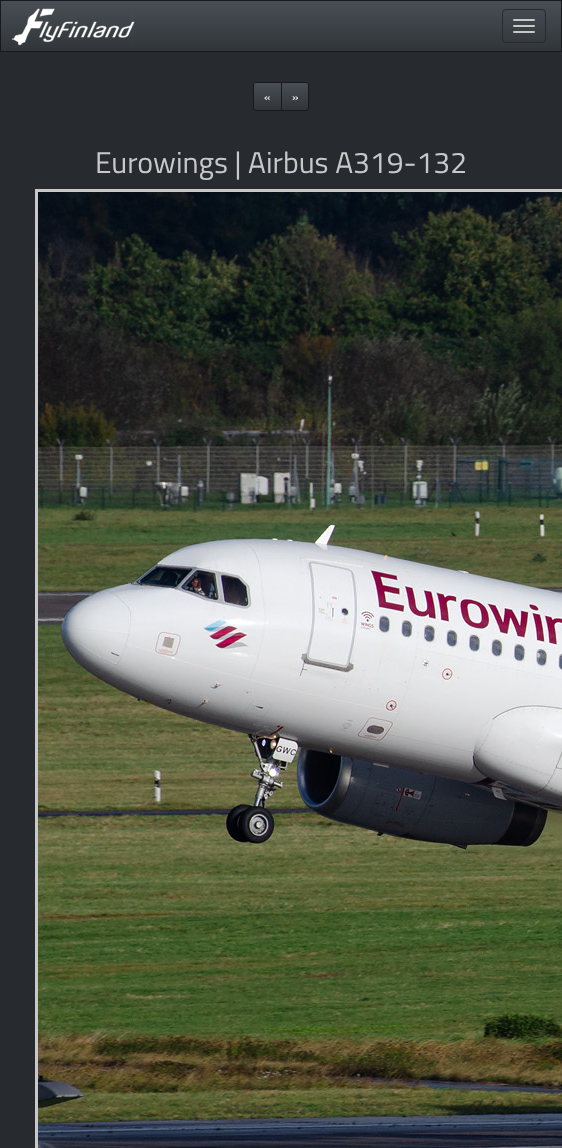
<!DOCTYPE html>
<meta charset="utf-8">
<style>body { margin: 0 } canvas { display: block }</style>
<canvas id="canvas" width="562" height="1148"></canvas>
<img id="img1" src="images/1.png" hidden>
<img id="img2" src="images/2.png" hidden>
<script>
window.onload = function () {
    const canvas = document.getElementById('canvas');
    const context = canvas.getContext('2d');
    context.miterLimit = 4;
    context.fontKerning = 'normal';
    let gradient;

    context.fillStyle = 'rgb(39, 43, 48)';
    context.fillRect(0, 0, 562, 1148);
    gradient = context.createLinearGradient(281, 1, 281, 51);
    gradient.addColorStop(0, 'rgb(72, 78, 85)');
    gradient.addColorStop(0.6, 'rgb(58, 63, 68)');
    gradient.addColorStop(1, 'rgb(49, 53, 57)');
    context.fillStyle = gradient;
    context.fillRect(1, 1, 560, 50);
    context.strokeStyle = 'rgb(23, 25, 27)';
    context.strokeRect(0.5, 0.5, 561, 51);
    context.drawImage(document.getElementById('img1'), 12, 8, 123, 38);
    context.beginPath();
    context.roundRect(502.5, 9.5, 43, 33, 3.5);
    context.strokeStyle = 'rgb(39, 43, 46)';
    context.stroke();
    context.fillStyle = 'rgb(200, 200, 200)';
    context.beginPath();
    context.roundRect(513, 19, 22, 2, 1);
    context.fill();
    context.beginPath();
    context.roundRect(513, 25, 22, 2, 1);
    context.fill();
    context.beginPath();
    context.roundRect(513, 31, 22, 2, 1);
    context.fill();
    context.fillStyle = 'rgb(58, 63, 68)';
    context.beginPath();
    context.roundRect(253, 82, 29, 29, [3, 0, 0, 3]);
    context.fill();
    gradient = context.createLinearGradient(268, 83, 268, 110);
    gradient.addColorStop(0, 'rgb(72, 78, 85)');
    gradient.addColorStop(0.6, 'rgb(58, 63, 68)');
    gradient.addColorStop(1, 'rgb(49, 53, 57)');
    context.fillStyle = gradient;
    context.fillRect(254, 83, 27, 27);
    context.beginPath();
    context.roundRect(253.5, 82.5, 28, 28, [2.5, 0, 0, 2.5]);
    context.strokeStyle = 'rgba(0, 0, 0, 0.6)';
    context.stroke();
    context.fillStyle = 'rgb(58, 63, 68)';
    context.beginPath();
    context.roundRect(281, 82, 28, 29, [0, 3, 3, 0]);
    context.fill();
    gradient = context.createLinearGradient(295, 83, 295, 110);
    gradient.addColorStop(0, 'rgb(72, 78, 85)');
    gradient.addColorStop(0.6, 'rgb(58, 63, 68)');
    gradient.addColorStop(1, 'rgb(49, 53, 57)');
    context.fillStyle = gradient;
    context.fillRect(282, 83, 26, 27);
    context.beginPath();
    context.roundRect(281.5, 82.5, 27, 28, [0, 2.5, 2.5, 0]);
    context.stroke();
    context.strokeStyle = 'rgb(200, 200, 200)';
    context.lineWidth = 3;
    context.strokeRect(36.5, 190.5, 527, 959);
    context.drawImage(document.getElementById('img2'), 38, 192, 524, 956);
    context.font = '12px Titillium Web';
    context.fillStyle = 'rgb(255, 255, 255)';
    context.fillText('«', 264, 101);
    context.fillText('»', 292, 101);
    context.font = '30px Titillium Web';
    context.fillStyle = 'rgb(200, 200, 200)';
    context.fillText('Eurowings | Airbus A319-132', 95, 173);
};
</script>
